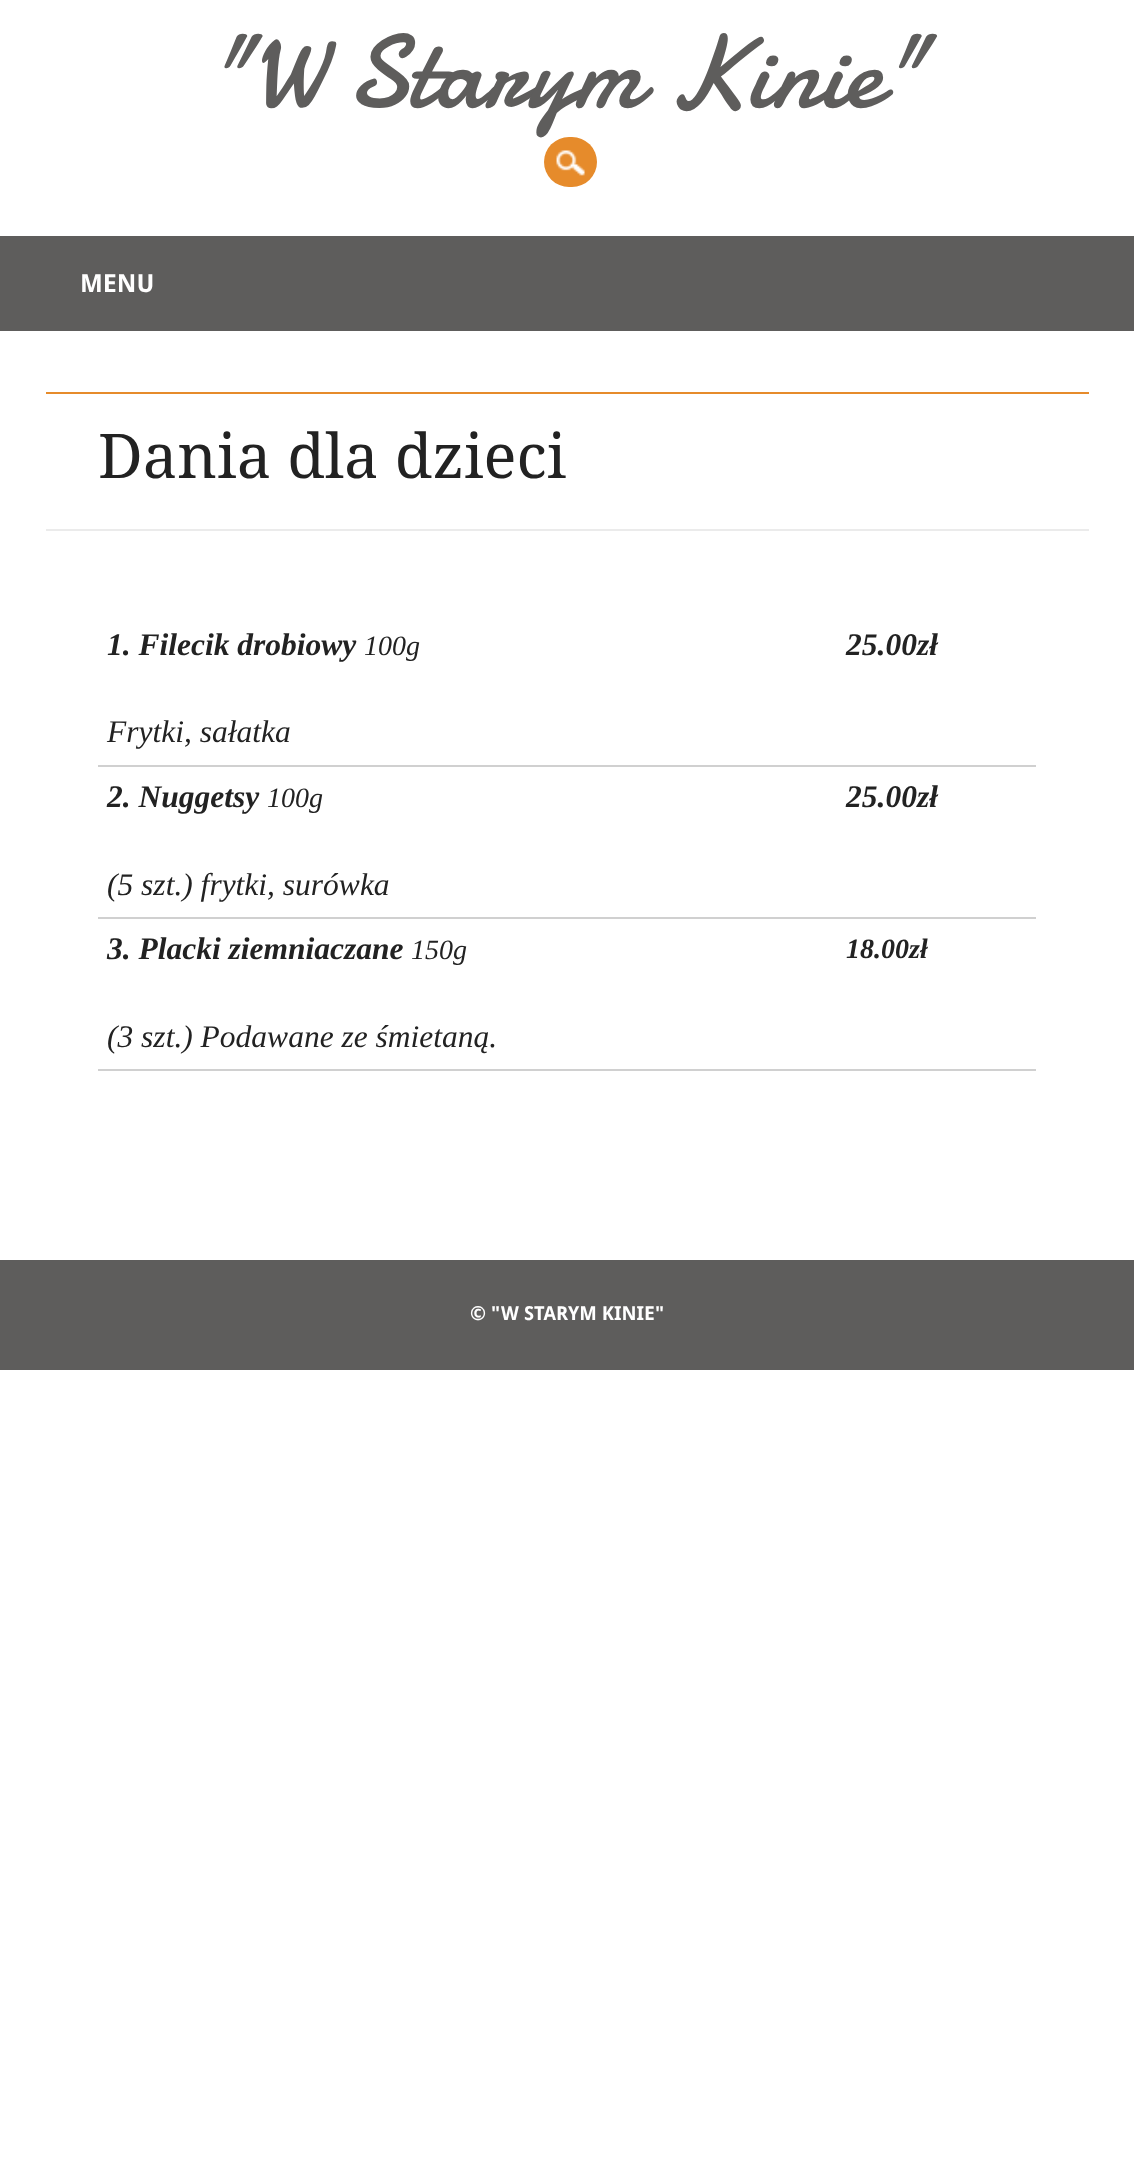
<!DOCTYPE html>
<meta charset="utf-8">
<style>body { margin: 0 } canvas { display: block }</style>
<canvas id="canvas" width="1134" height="2177"></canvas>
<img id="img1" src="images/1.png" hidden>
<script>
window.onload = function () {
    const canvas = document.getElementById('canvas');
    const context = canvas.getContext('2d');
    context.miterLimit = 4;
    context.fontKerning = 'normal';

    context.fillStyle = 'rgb(255, 255, 255)';
    context.fillRect(0, 0, 1134, 2177);
    context.fillStyle = 'rgb(94, 93, 92)';
    context.fillRect(0, 236, 1134, 95);
    context.fillStyle = 'rgb(230, 139, 43)';
    context.fillRect(46, 392, 1043, 2);
    context.fillStyle = 'rgb(235, 235, 235)';
    context.fillRect(46, 529, 1043, 2);
    context.fillStyle = 'rgb(208, 208, 208)';
    context.fillRect(98, 765, 938, 2);
    context.fillRect(98, 917, 938, 2);
    context.fillRect(98, 1069, 938, 2);
    context.fillStyle = 'rgb(94, 93, 92)';
    context.fillRect(0, 1260, 1134, 110);
    context.font = '105px Damion';
    context.fillText('"W Starym Kinie"', 208, 107);
    context.fillStyle = 'rgb(230, 139, 43)';
    context.beginPath();
    context.roundRect(544, 137, 53, 50, 25);
    context.fill();
    context.drawImage(document.getElementById('img1'), 556, 150, 29, 26);
    context.font = 'bold 25px Droid Sans';
    context.fillStyle = 'rgb(255, 255, 255)';
    context.fillText('MENU', 80, 292);
    context.font = '61.5px Droid Serif';
    context.fillStyle = 'rgb(34, 34, 34)';
    context.fillText('Dania dla dzieci', 98, 478);
    context.font = 'italic bold 31.5px Liberation Serif';
    context.fillText('1. Filecik drobiowy', 107, 655);
    context.font = 'italic 28px Liberation Serif';
    context.fillText('100g', 364, 655);
    context.font = 'italic 31.5px Liberation Serif';
    context.fillText('Frytki, sałatka', 107, 742);
    context.font = 'italic bold 31.5px Liberation Serif';
    context.fillText('25.00zł', 846, 655);
    context.fillText('2. Nuggetsy', 107, 807);
    context.font = 'italic 28px Liberation Serif';
    context.fillText('100g', 267, 807);
    context.font = 'italic 31.5px Liberation Serif';
    context.fillText('(5 szt.) frytki, surówka', 107, 895);
    context.font = 'italic bold 31.5px Liberation Serif';
    context.fillText('25.00zł', 846, 807);
    context.fillText('3. Placki ziemniaczane', 107, 959);
    context.font = 'italic 28px Liberation Serif';
    context.fillText('150g', 411, 959);
    context.font = 'italic 31.5px Liberation Serif';
    context.fillText('(3 szt.) Podawane ze śmietaną.', 107, 1047);
    context.font = 'italic bold 28px Liberation Serif';
    context.fillText('18.00zł', 846, 958);
    context.font = 'bold 19.25px Droid Sans';
    context.fillStyle = 'rgb(255, 255, 255)';
    context.fillText('© "W STARYM KINIE"', 470, 1320);
};
</script>
